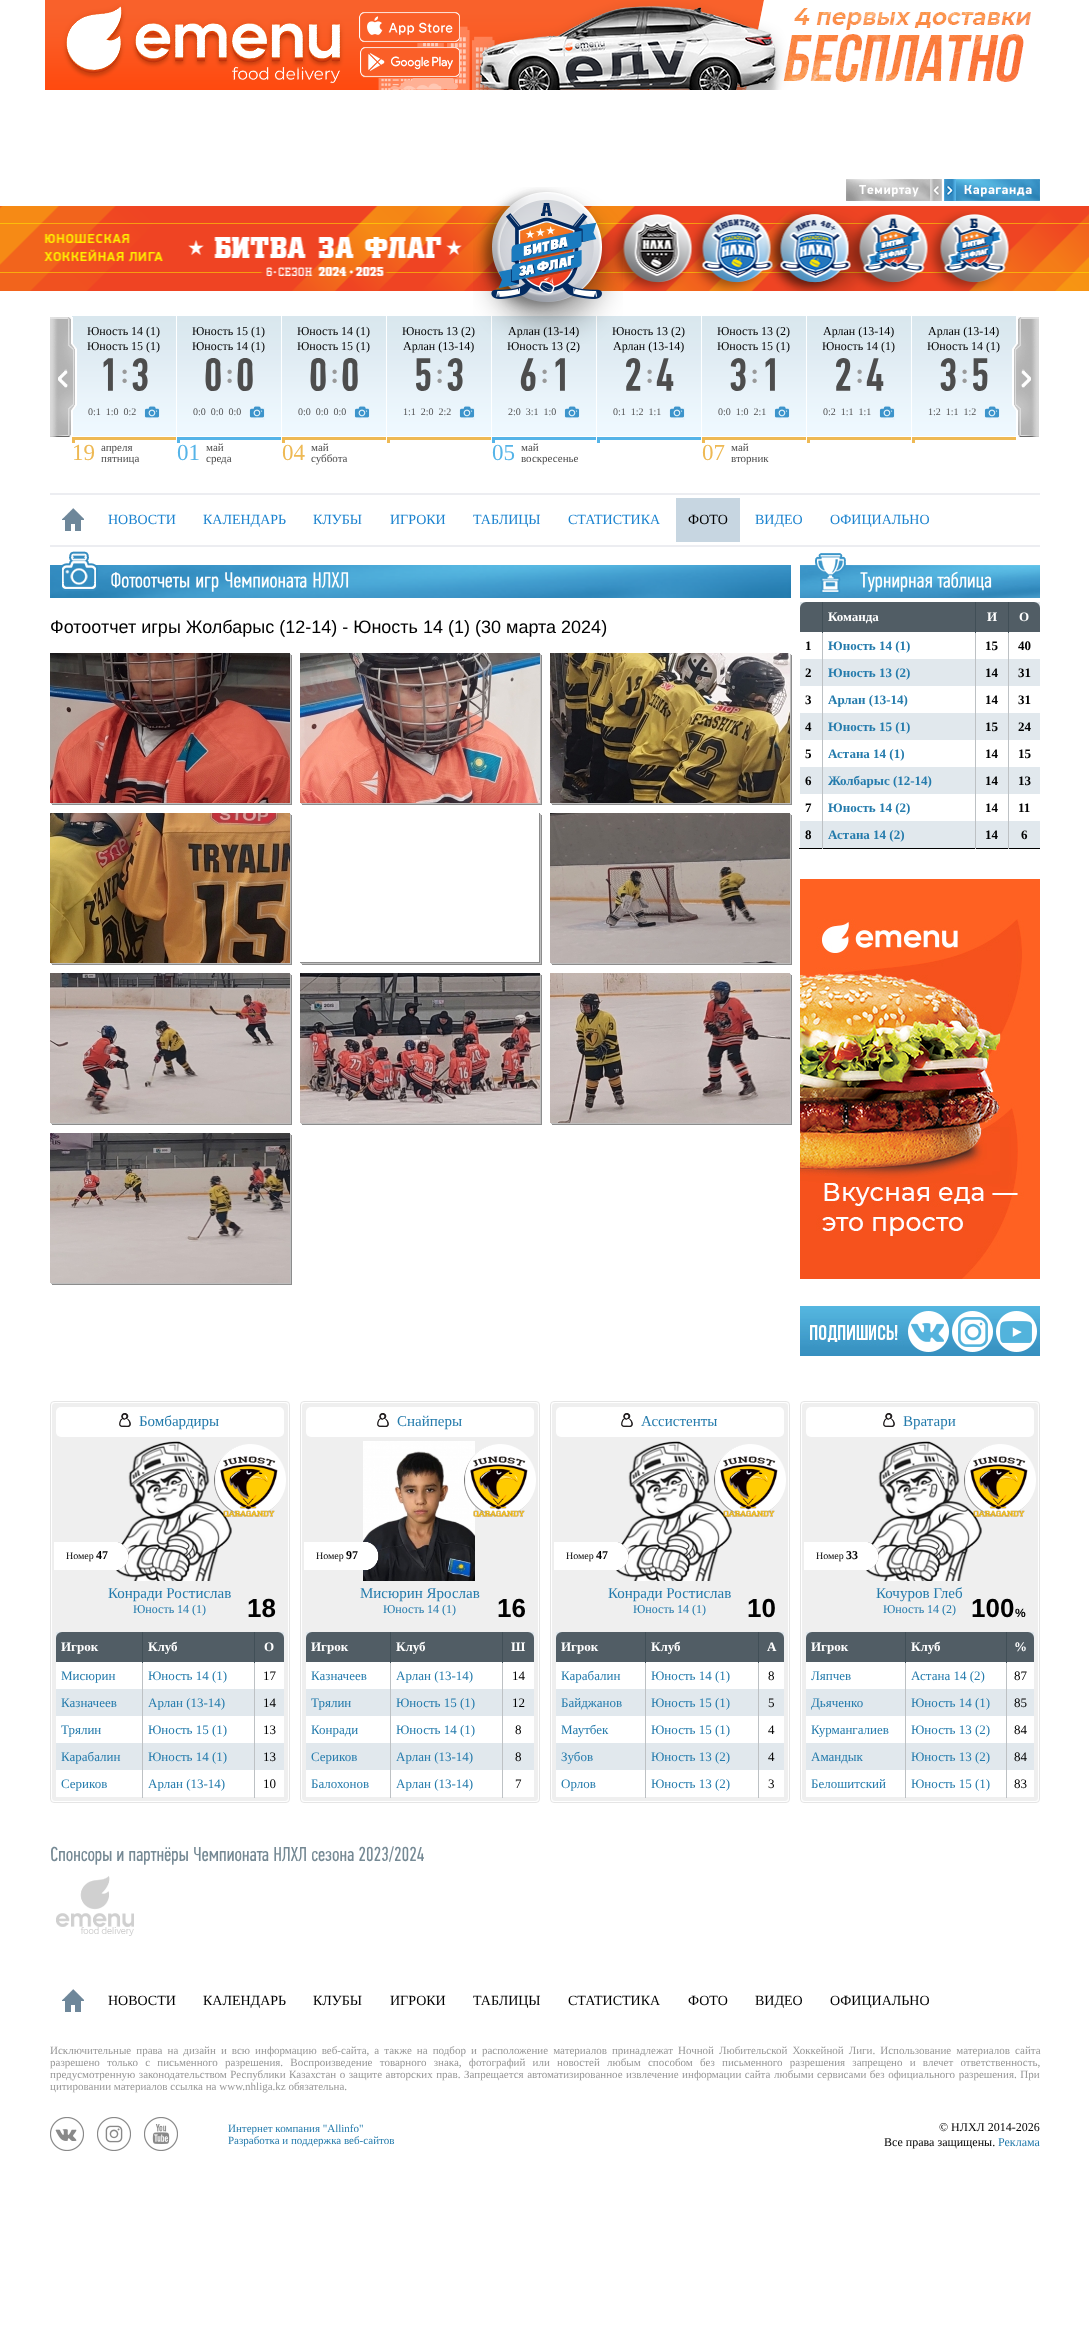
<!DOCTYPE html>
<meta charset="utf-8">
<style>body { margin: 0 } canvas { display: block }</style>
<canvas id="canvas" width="1089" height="2337"></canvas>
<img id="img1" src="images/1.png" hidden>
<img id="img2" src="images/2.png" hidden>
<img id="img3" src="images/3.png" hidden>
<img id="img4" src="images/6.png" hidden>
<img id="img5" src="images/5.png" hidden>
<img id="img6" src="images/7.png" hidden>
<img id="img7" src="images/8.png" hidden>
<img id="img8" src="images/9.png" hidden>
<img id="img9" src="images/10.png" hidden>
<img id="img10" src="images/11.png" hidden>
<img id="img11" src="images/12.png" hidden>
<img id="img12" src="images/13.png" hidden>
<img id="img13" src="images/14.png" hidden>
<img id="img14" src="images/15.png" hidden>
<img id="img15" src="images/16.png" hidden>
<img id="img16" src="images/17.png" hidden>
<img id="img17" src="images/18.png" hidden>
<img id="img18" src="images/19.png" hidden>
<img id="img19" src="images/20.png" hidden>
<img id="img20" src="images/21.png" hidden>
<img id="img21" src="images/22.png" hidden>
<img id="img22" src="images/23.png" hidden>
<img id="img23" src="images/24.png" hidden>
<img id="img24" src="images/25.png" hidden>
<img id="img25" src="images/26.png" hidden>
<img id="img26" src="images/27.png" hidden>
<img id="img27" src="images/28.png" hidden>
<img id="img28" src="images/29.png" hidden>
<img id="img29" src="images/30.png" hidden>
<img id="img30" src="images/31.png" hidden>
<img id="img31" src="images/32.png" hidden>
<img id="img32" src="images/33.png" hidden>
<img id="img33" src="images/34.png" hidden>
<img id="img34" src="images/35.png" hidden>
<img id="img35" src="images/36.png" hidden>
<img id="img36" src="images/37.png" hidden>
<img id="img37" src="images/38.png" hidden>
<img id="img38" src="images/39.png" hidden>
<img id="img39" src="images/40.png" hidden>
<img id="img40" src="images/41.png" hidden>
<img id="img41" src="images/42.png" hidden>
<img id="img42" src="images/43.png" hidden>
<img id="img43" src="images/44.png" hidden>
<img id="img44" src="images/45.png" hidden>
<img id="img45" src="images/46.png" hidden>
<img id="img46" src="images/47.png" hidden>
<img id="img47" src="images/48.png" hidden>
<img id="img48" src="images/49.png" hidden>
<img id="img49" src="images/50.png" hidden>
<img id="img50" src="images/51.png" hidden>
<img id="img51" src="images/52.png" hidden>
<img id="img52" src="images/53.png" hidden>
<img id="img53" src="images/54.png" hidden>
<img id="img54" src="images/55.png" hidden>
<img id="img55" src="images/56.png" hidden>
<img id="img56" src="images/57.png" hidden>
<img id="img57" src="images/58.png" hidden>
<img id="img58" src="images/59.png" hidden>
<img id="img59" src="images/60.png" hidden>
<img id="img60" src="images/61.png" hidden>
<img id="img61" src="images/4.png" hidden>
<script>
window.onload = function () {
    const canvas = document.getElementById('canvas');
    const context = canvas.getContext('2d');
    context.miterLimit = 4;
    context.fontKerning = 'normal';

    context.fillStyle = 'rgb(255, 255, 255)';
    context.fillRect(0, 0, 1089, 2337);
    context.drawImage(document.getElementById('img1'), 45, 0, 986, 90);
    context.drawImage(document.getElementById('img2'), 846, 179, 194, 22);
    context.drawImage(document.getElementById('img3'), 0, 206, 1089, 85);
    context.drawImage(document.getElementById('img4'), 72, 316, 104, 120);
    context.drawImage(document.getElementById('img5'), 50, 317, 27, 120);
    context.drawImage(document.getElementById('img6'), 103, 358, 10, 33);
    context.drawImage(document.getElementById('img7'), 122, 369, 5, 14);
    context.drawImage(document.getElementById('img8'), 132, 358, 16, 33);
    context.drawImage(document.getElementById('img9'), 144, 405, 16, 15);
    context.fillStyle = 'rgb(238, 185, 84)';
    context.fillRect(72, 437, 104, 3);
    context.fillRect(72, 440, 3, 3);
    context.drawImage(document.getElementById('img4'), 177, 316, 104, 120);
    context.drawImage(document.getElementById('img10'), 205, 358, 16, 33);
    context.drawImage(document.getElementById('img7'), 227, 369, 5, 14);
    context.drawImage(document.getElementById('img10'), 237, 358, 16, 33);
    context.drawImage(document.getElementById('img9'), 249, 405, 16, 15);
    context.fillStyle = 'rgb(85, 180, 232)';
    context.fillRect(177, 437, 104, 3);
    context.fillRect(177, 440, 3, 3);
    context.drawImage(document.getElementById('img4'), 282, 316, 104, 120);
    context.drawImage(document.getElementById('img10'), 310, 358, 16, 33);
    context.drawImage(document.getElementById('img7'), 332, 369, 5, 14);
    context.drawImage(document.getElementById('img10'), 342, 358, 16, 33);
    context.drawImage(document.getElementById('img9'), 354, 405, 16, 15);
    context.fillStyle = 'rgb(238, 185, 84)';
    context.fillRect(282, 437, 104, 3);
    context.fillRect(282, 440, 3, 3);
    context.drawImage(document.getElementById('img4'), 387, 316, 104, 120);
    context.drawImage(document.getElementById('img11'), 416, 358, 15, 33);
    context.drawImage(document.getElementById('img7'), 437, 369, 5, 14);
    context.drawImage(document.getElementById('img8'), 447, 358, 16, 33);
    context.drawImage(document.getElementById('img9'), 459, 405, 16, 15);
    context.fillRect(387, 437, 104, 3);
    context.fillRect(387, 440, 3, 3);
    context.drawImage(document.getElementById('img4'), 492, 316, 104, 120);
    context.drawImage(document.getElementById('img12'), 520, 358, 16, 33);
    context.drawImage(document.getElementById('img7'), 542, 369, 5, 14);
    context.drawImage(document.getElementById('img6'), 555, 358, 10, 33);
    context.drawImage(document.getElementById('img9'), 564, 405, 16, 15);
    context.fillStyle = 'rgb(85, 180, 232)';
    context.fillRect(492, 437, 104, 3);
    context.fillRect(492, 440, 3, 3);
    context.drawImage(document.getElementById('img4'), 597, 316, 104, 120);
    context.drawImage(document.getElementById('img13'), 626, 358, 15, 33);
    context.drawImage(document.getElementById('img7'), 647, 369, 5, 14);
    context.drawImage(document.getElementById('img14'), 656, 358, 18, 33);
    context.drawImage(document.getElementById('img9'), 669, 405, 16, 15);
    context.fillRect(597, 437, 104, 3);
    context.fillRect(597, 440, 3, 3);
    context.drawImage(document.getElementById('img4'), 702, 316, 104, 120);
    context.drawImage(document.getElementById('img8'), 730, 358, 16, 33);
    context.drawImage(document.getElementById('img7'), 752, 369, 5, 14);
    context.drawImage(document.getElementById('img6'), 765, 358, 10, 33);
    context.drawImage(document.getElementById('img9'), 774, 405, 16, 15);
    context.fillStyle = 'rgb(238, 185, 84)';
    context.fillRect(702, 437, 104, 3);
    context.fillRect(702, 440, 3, 3);
    context.drawImage(document.getElementById('img4'), 807, 316, 104, 120);
    context.drawImage(document.getElementById('img13'), 836, 358, 15, 33);
    context.drawImage(document.getElementById('img7'), 857, 369, 5, 14);
    context.drawImage(document.getElementById('img14'), 866, 358, 18, 33);
    context.drawImage(document.getElementById('img9'), 879, 405, 16, 15);
    context.fillRect(807, 437, 104, 3);
    context.fillRect(807, 440, 3, 3);
    context.drawImage(document.getElementById('img4'), 912, 316, 104, 120);
    context.drawImage(document.getElementById('img8'), 940, 358, 16, 33);
    context.drawImage(document.getElementById('img7'), 962, 369, 5, 14);
    context.drawImage(document.getElementById('img11'), 973, 358, 15, 33);
    context.drawImage(document.getElementById('img9'), 984, 405, 16, 15);
    context.fillRect(912, 437, 104, 3);
    context.fillRect(912, 440, 3, 3);
    context.drawImage(document.getElementById('img15'), 1012, 317, 27, 120);
    context.fillStyle = 'rgb(236, 237, 241)';
    context.fillRect(50, 493, 990, 2);
    context.fillRect(50, 545, 990, 2);
    context.drawImage(document.getElementById('img16'), 62, 508, 22, 23);
    context.fillStyle = 'rgb(199, 214, 225)';
    context.fillRect(676, 498, 64, 44);
    context.drawImage(document.getElementById('img17'), 50, 565, 741, 33);
    context.drawImage(document.getElementById('img18'), 62, 551, 36, 40);
    context.drawImage(document.getElementById('img19'), 111, 572, 79, 16);
    context.drawImage(document.getElementById('img20'), 196, 576, 23, 16);
    context.drawImage(document.getElementById('img21'), 225, 572, 82, 16);
    context.drawImage(document.getElementById('img22'), 313, 572, 36, 16);
    context.drawImage(document.getElementById('img23'), 51, 654, 241, 151);
    context.drawImage(document.getElementById('img24'), 50, 653, 240, 150);
    context.drawImage(document.getElementById('img23'), 301, 654, 241, 151);
    context.drawImage(document.getElementById('img25'), 300, 653, 240, 150);
    context.drawImage(document.getElementById('img23'), 551, 654, 241, 151);
    context.drawImage(document.getElementById('img26'), 550, 653, 240, 150);
    context.drawImage(document.getElementById('img23'), 51, 814, 241, 151);
    context.drawImage(document.getElementById('img27'), 50, 813, 240, 150);
    context.drawImage(document.getElementById('img28'), 300, 813, 242, 152);
    context.drawImage(document.getElementById('img23'), 551, 814, 241, 151);
    context.drawImage(document.getElementById('img29'), 550, 813, 240, 150);
    context.drawImage(document.getElementById('img23'), 51, 974, 241, 151);
    context.drawImage(document.getElementById('img30'), 50, 973, 240, 150);
    context.drawImage(document.getElementById('img23'), 301, 974, 241, 151);
    context.drawImage(document.getElementById('img31'), 300, 973, 240, 150);
    context.drawImage(document.getElementById('img23'), 551, 974, 241, 151);
    context.drawImage(document.getElementById('img32'), 550, 973, 240, 150);
    context.drawImage(document.getElementById('img23'), 51, 1134, 241, 151);
    context.drawImage(document.getElementById('img33'), 50, 1133, 240, 150);
    context.drawImage(document.getElementById('img34'), 800, 565, 240, 33);
    context.drawImage(document.getElementById('img35'), 815, 553, 31, 41);
    context.drawImage(document.getElementById('img36'), 860, 572, 72, 20);
    context.drawImage(document.getElementById('img37'), 937, 571, 55, 20);
    context.fillStyle = 'rgb(225, 232, 237)';
    context.fillRect(800, 602, 240, 6);
    context.fillStyle = 'rgb(81, 93, 101)';
    context.beginPath();
    context.roundRect(800, 602, 22, 30, [6, 0, 0, 0]);
    context.fill();
    context.fillStyle = 'rgb(225, 232, 237)';
    context.fillRect(800, 659, 240, 27);
    context.fillRect(800, 713, 240, 27);
    context.fillRect(800, 767, 240, 27);
    context.fillRect(800, 821, 240, 27);
    context.fillStyle = 'rgb(0, 0, 0)';
    context.fillRect(799, 848, 241, 1);
    context.fillStyle = 'rgb(189, 193, 196)';
    context.fillRect(822, 632, 1, 217);
    context.fillStyle = 'rgb(65, 79, 87)';
    context.fillRect(822, 602, 1, 31);
    context.fillStyle = 'rgb(81, 93, 101)';
    context.fillRect(823, 602, 152, 30);
    context.fillStyle = 'rgb(189, 193, 196)';
    context.fillRect(975, 632, 1, 217);
    context.fillStyle = 'rgb(65, 79, 87)';
    context.fillRect(975, 602, 1, 31);
    context.fillStyle = 'rgb(81, 93, 101)';
    context.fillRect(976, 602, 32, 30);
    context.beginPath();
    context.roundRect(1008, 602, 32, 30, [0, 6, 0, 0]);
    context.fill();
    context.fillStyle = 'rgb(189, 193, 196)';
    context.fillRect(1008, 632, 1, 217);
    context.fillStyle = 'rgb(65, 79, 87)';
    context.fillRect(1008, 602, 1, 31);
    context.drawImage(document.getElementById('img38'), 800, 879, 240, 400);
    context.drawImage(document.getElementById('img39'), 800, 1306, 240, 50);
    context.drawImage(document.getElementById('img40'), 908, 1311, 41, 41);
    context.drawImage(document.getElementById('img41'), 952, 1311, 41, 41);
    context.drawImage(document.getElementById('img42'), 996, 1311, 41, 41);
    context.beginPath();
    context.roundRect(50.5, 1401.5, 239, 401, 3.5);
    context.strokeStyle = 'rgb(229, 229, 229)';
    context.stroke();
    context.fillStyle = 'rgb(239, 239, 239)';
    context.beginPath();
    context.roundRect(51.5, 1402.5, 237, 399, 3.5);
    context.fill();
    context.strokeStyle = 'rgb(255, 255, 255)';
    context.stroke();
    context.fillStyle = 'rgb(255, 255, 255)';
    context.beginPath();
    context.roundRect(56, 1407, 228, 30, 5);
    context.fill();
    context.drawImage(document.getElementById('img43'), 119, 1413, 12, 14);
    context.drawImage(document.getElementById('img44'), 115, 1441, 117, 140);
    context.drawImage(document.getElementById('img45'), 54, 1444, 232, 126);
    context.drawImage(document.getElementById('img46'), 220, 1456, 58, 61);
    context.fillStyle = 'rgb(225, 232, 237)';
    context.fillRect(56, 1632, 228, 6);
    context.fillStyle = 'rgb(81, 93, 101)';
    context.beginPath();
    context.roundRect(56, 1632, 86, 30, [6, 0, 0, 0]);
    context.fill();
    context.fillStyle = 'rgb(255, 255, 255)';
    context.fillRect(56, 1662, 228, 27);
    context.fillStyle = 'rgb(225, 232, 237)';
    context.fillRect(56, 1689, 228, 27);
    context.fillStyle = 'rgb(255, 255, 255)';
    context.fillRect(56, 1716, 228, 27);
    context.fillStyle = 'rgb(225, 232, 237)';
    context.fillRect(56, 1743, 228, 27);
    context.fillStyle = 'rgb(255, 255, 255)';
    context.fillRect(56, 1770, 228, 27);
    context.fillStyle = 'rgb(189, 193, 196)';
    context.fillRect(142, 1662, 1, 136);
    context.fillStyle = 'rgb(65, 79, 87)';
    context.fillRect(142, 1632, 1, 31);
    context.fillStyle = 'rgb(81, 93, 101)';
    context.fillRect(143, 1632, 111, 30);
    context.beginPath();
    context.roundRect(254, 1632, 30, 30, [0, 6, 0, 0]);
    context.fill();
    context.fillStyle = 'rgb(189, 193, 196)';
    context.fillRect(254, 1662, 1, 136);
    context.fillStyle = 'rgb(65, 79, 87)';
    context.fillRect(254, 1632, 1, 31);
    context.beginPath();
    context.roundRect(300.5, 1401.5, 239, 401, 3.5);
    context.strokeStyle = 'rgb(229, 229, 229)';
    context.stroke();
    context.fillStyle = 'rgb(239, 239, 239)';
    context.beginPath();
    context.roundRect(301.5, 1402.5, 237, 399, 3.5);
    context.fill();
    context.strokeStyle = 'rgb(255, 255, 255)';
    context.stroke();
    context.fillStyle = 'rgb(255, 255, 255)';
    context.beginPath();
    context.roundRect(306, 1407, 228, 30, 5);
    context.fill();
    context.drawImage(document.getElementById('img43'), 377, 1413, 12, 14);
    context.drawImage(document.getElementById('img47'), 363, 1441, 112, 140);
    context.drawImage(document.getElementById('img48'), 304, 1444, 232, 126);
    context.drawImage(document.getElementById('img49'), 470, 1456, 58, 61);
    context.fillStyle = 'rgb(225, 232, 237)';
    context.fillRect(306, 1632, 228, 6);
    context.fillStyle = 'rgb(81, 93, 101)';
    context.beginPath();
    context.roundRect(306, 1632, 85, 30, [6, 0, 0, 0]);
    context.fill();
    context.fillStyle = 'rgb(255, 255, 255)';
    context.fillRect(306, 1662, 228, 27);
    context.fillStyle = 'rgb(225, 232, 237)';
    context.fillRect(306, 1689, 228, 27);
    context.fillStyle = 'rgb(255, 255, 255)';
    context.fillRect(306, 1716, 228, 27);
    context.fillStyle = 'rgb(225, 232, 237)';
    context.fillRect(306, 1743, 228, 27);
    context.fillStyle = 'rgb(255, 255, 255)';
    context.fillRect(306, 1770, 228, 27);
    context.fillStyle = 'rgb(189, 193, 196)';
    context.fillRect(390, 1662, 1, 136);
    context.fillStyle = 'rgb(65, 79, 87)';
    context.fillRect(390, 1632, 1, 31);
    context.fillStyle = 'rgb(81, 93, 101)';
    context.fillRect(391, 1632, 111, 30);
    context.fillStyle = 'rgb(189, 193, 196)';
    context.fillRect(502, 1662, 1, 136);
    context.fillStyle = 'rgb(65, 79, 87)';
    context.fillRect(502, 1632, 1, 31);
    context.fillStyle = 'rgb(81, 93, 101)';
    context.beginPath();
    context.roundRect(503, 1632, 31, 30, [0, 6, 0, 0]);
    context.fill();
    context.beginPath();
    context.roundRect(550.5, 1401.5, 239, 401, 3.5);
    context.strokeStyle = 'rgb(229, 229, 229)';
    context.stroke();
    context.fillStyle = 'rgb(239, 239, 239)';
    context.beginPath();
    context.roundRect(551.5, 1402.5, 237, 399, 3.5);
    context.fill();
    context.strokeStyle = 'rgb(255, 255, 255)';
    context.stroke();
    context.fillStyle = 'rgb(255, 255, 255)';
    context.beginPath();
    context.roundRect(556, 1407, 228, 30, 5);
    context.fill();
    context.drawImage(document.getElementById('img43'), 621, 1413, 12, 14);
    context.drawImage(document.getElementById('img44'), 615, 1441, 117, 140);
    context.drawImage(document.getElementById('img45'), 554, 1444, 232, 126);
    context.drawImage(document.getElementById('img46'), 720, 1456, 58, 61);
    context.fillStyle = 'rgb(225, 232, 237)';
    context.fillRect(556, 1632, 228, 6);
    context.fillStyle = 'rgb(81, 93, 101)';
    context.beginPath();
    context.roundRect(556, 1632, 89, 30, [6, 0, 0, 0]);
    context.fill();
    context.fillStyle = 'rgb(255, 255, 255)';
    context.fillRect(556, 1662, 228, 27);
    context.fillStyle = 'rgb(225, 232, 237)';
    context.fillRect(556, 1689, 228, 27);
    context.fillStyle = 'rgb(255, 255, 255)';
    context.fillRect(556, 1716, 228, 27);
    context.fillStyle = 'rgb(225, 232, 237)';
    context.fillRect(556, 1743, 228, 27);
    context.fillStyle = 'rgb(255, 255, 255)';
    context.fillRect(556, 1770, 228, 27);
    context.fillStyle = 'rgb(189, 193, 196)';
    context.fillRect(645, 1662, 1, 136);
    context.fillStyle = 'rgb(65, 79, 87)';
    context.fillRect(645, 1632, 1, 31);
    context.fillStyle = 'rgb(81, 93, 101)';
    context.fillRect(646, 1632, 112, 30);
    context.fillStyle = 'rgb(189, 193, 196)';
    context.fillRect(758, 1662, 1, 136);
    context.fillStyle = 'rgb(65, 79, 87)';
    context.fillRect(758, 1632, 1, 31);
    context.fillStyle = 'rgb(81, 93, 101)';
    context.beginPath();
    context.roundRect(759, 1632, 25, 30, [0, 6, 0, 0]);
    context.fill();
    context.beginPath();
    context.roundRect(800.5, 1401.5, 239, 401, 3.5);
    context.strokeStyle = 'rgb(229, 229, 229)';
    context.stroke();
    context.fillStyle = 'rgb(239, 239, 239)';
    context.beginPath();
    context.roundRect(801.5, 1402.5, 237, 399, 3.5);
    context.fill();
    context.strokeStyle = 'rgb(255, 255, 255)';
    context.stroke();
    context.fillStyle = 'rgb(255, 255, 255)';
    context.beginPath();
    context.roundRect(806, 1407, 228, 30, 5);
    context.fill();
    context.drawImage(document.getElementById('img43'), 883, 1413, 12, 14);
    context.drawImage(document.getElementById('img44'), 865, 1441, 117, 140);
    context.drawImage(document.getElementById('img45'), 804, 1444, 232, 126);
    context.drawImage(document.getElementById('img46'), 970, 1456, 58, 61);
    context.fillStyle = 'rgb(225, 232, 237)';
    context.fillRect(806, 1632, 228, 6);
    context.fillStyle = 'rgb(81, 93, 101)';
    context.beginPath();
    context.roundRect(806, 1632, 99, 30, [6, 0, 0, 0]);
    context.fill();
    context.fillStyle = 'rgb(255, 255, 255)';
    context.fillRect(806, 1662, 228, 27);
    context.fillStyle = 'rgb(225, 232, 237)';
    context.fillRect(806, 1689, 228, 27);
    context.fillStyle = 'rgb(255, 255, 255)';
    context.fillRect(806, 1716, 228, 27);
    context.fillStyle = 'rgb(225, 232, 237)';
    context.fillRect(806, 1743, 228, 27);
    context.fillStyle = 'rgb(255, 255, 255)';
    context.fillRect(806, 1770, 228, 27);
    context.fillStyle = 'rgb(189, 193, 196)';
    context.fillRect(905, 1662, 1, 136);
    context.fillStyle = 'rgb(65, 79, 87)';
    context.fillRect(905, 1632, 1, 31);
    context.fillStyle = 'rgb(81, 93, 101)';
    context.fillRect(906, 1632, 100, 30);
    context.fillStyle = 'rgb(189, 193, 196)';
    context.fillRect(1006, 1662, 1, 136);
    context.fillStyle = 'rgb(65, 79, 87)';
    context.fillRect(1006, 1632, 1, 31);
    context.fillStyle = 'rgb(81, 93, 101)';
    context.beginPath();
    context.roundRect(1007, 1632, 27, 30, [0, 6, 0, 0]);
    context.fill();
    context.drawImage(document.getElementById('img50'), 51, 1846, 61, 19);
    context.drawImage(document.getElementById('img51'), 117, 1851, 7, 10);
    context.drawImage(document.getElementById('img52'), 129, 1847, 59, 18);
    context.drawImage(document.getElementById('img53'), 194, 1847, 75, 15);
    context.drawImage(document.getElementById('img54'), 274, 1847, 32, 15);
    context.drawImage(document.getElementById('img55'), 312, 1851, 42, 11);
    context.drawImage(document.getElementById('img56'), 359, 1846, 65, 16);
    context.drawImage(document.getElementById('img57'), 56, 1876, 78, 60);
    context.drawImage(document.getElementById('img16'), 62, 1989, 22, 23);
    context.drawImage(document.getElementById('img58'), 50, 2117, 34, 34);
    context.drawImage(document.getElementById('img59'), 97, 2117, 34, 34);
    context.drawImage(document.getElementById('img60'), 144, 2117, 34, 34);
    context.font = '12px Liberation Serif';
    context.fillStyle = 'rgb(0, 0, 0)';
    context.fillText('Юность 14 (1)', 87, 335);
    context.fillText('Юность 15 (1)', 87, 350);
    context.font = '10px Liberation Serif';
    context.fillStyle = 'rgb(84, 84, 84)';
    context.fillText('0:1  1:0  0:2', 88, 415);
    context.font = '23px Liberation Serif';
    context.fillStyle = 'rgb(238, 185, 84)';
    context.fillText('19', 72, 460);
    context.font = '11px Liberation Serif';
    context.fillStyle = 'rgb(77, 77, 77)';
    context.fillText('апреля', 101, 451);
    context.fillText('пятница', 101, 462);
    context.font = '12px Liberation Serif';
    context.fillStyle = 'rgb(0, 0, 0)';
    context.fillText('Юность 15 (1)', 192, 335);
    context.fillText('Юность 14 (1)', 192, 350);
    context.font = '10px Liberation Serif';
    context.fillStyle = 'rgb(84, 84, 84)';
    context.fillText('0:0  0:0  0:0', 193, 415);
    context.font = '23px Liberation Serif';
    context.fillStyle = 'rgb(85, 180, 232)';
    context.fillText('01', 177, 460);
    context.font = '11px Liberation Serif';
    context.fillStyle = 'rgb(77, 77, 77)';
    context.fillText('май', 206, 451);
    context.fillText('среда', 206, 462);
    context.font = '12px Liberation Serif';
    context.fillStyle = 'rgb(0, 0, 0)';
    context.fillText('Юность 14 (1)', 297, 335);
    context.fillText('Юность 15 (1)', 297, 350);
    context.font = '10px Liberation Serif';
    context.fillStyle = 'rgb(84, 84, 84)';
    context.fillText('0:0  0:0  0:0', 298, 415);
    context.font = '23px Liberation Serif';
    context.fillStyle = 'rgb(238, 185, 84)';
    context.fillText('04', 282, 460);
    context.font = '11px Liberation Serif';
    context.fillStyle = 'rgb(77, 77, 77)';
    context.fillText('май', 311, 451);
    context.fillText('суббота', 311, 462);
    context.font = '12px Liberation Serif';
    context.fillStyle = 'rgb(0, 0, 0)';
    context.fillText('Юность 13 (2)', 402, 335);
    context.fillText('Арлан (13-14)', 403, 350);
    context.font = '10px Liberation Serif';
    context.fillStyle = 'rgb(84, 84, 84)';
    context.fillText('1:1  2:0  2:2', 403, 415);
    context.font = '12px Liberation Serif';
    context.fillStyle = 'rgb(0, 0, 0)';
    context.fillText('Арлан (13-14)', 508, 335);
    context.fillText('Юность 13 (2)', 507, 350);
    context.font = '10px Liberation Serif';
    context.fillStyle = 'rgb(84, 84, 84)';
    context.fillText('2:0  3:1  1:0', 508, 415);
    context.font = '23px Liberation Serif';
    context.fillStyle = 'rgb(85, 180, 232)';
    context.fillText('05', 492, 460);
    context.font = '11px Liberation Serif';
    context.fillStyle = 'rgb(77, 77, 77)';
    context.fillText('май', 521, 451);
    context.fillText('воскресенье', 521, 462);
    context.font = '12px Liberation Serif';
    context.fillStyle = 'rgb(0, 0, 0)';
    context.fillText('Юность 13 (2)', 612, 335);
    context.fillText('Арлан (13-14)', 613, 350);
    context.drawImage(document.getElementById('img61'), 473, 187, 150, 157);
    context.font = '10px Liberation Serif';
    context.fillStyle = 'rgb(84, 84, 84)';
    context.fillText('0:1  1:2  1:1', 613, 415);
    context.font = '12px Liberation Serif';
    context.fillStyle = 'rgb(0, 0, 0)';
    context.fillText('Юность 13 (2)', 717, 335);
    context.fillText('Юность 15 (1)', 717, 350);
    context.font = '10px Liberation Serif';
    context.fillStyle = 'rgb(84, 84, 84)';
    context.fillText('0:0  1:0  2:1', 718, 415);
    context.font = '23px Liberation Serif';
    context.fillStyle = 'rgb(238, 185, 84)';
    context.fillText('07', 702, 460);
    context.font = '11px Liberation Serif';
    context.fillStyle = 'rgb(77, 77, 77)';
    context.fillText('май', 731, 451);
    context.fillText('вторник', 731, 462);
    context.font = '12px Liberation Serif';
    context.fillStyle = 'rgb(0, 0, 0)';
    context.fillText('Арлан (13-14)', 823, 335);
    context.fillText('Юность 14 (1)', 822, 350);
    context.font = '10px Liberation Serif';
    context.fillStyle = 'rgb(84, 84, 84)';
    context.fillText('0:2  1:1  1:1', 823, 415);
    context.font = '12px Liberation Serif';
    context.fillStyle = 'rgb(0, 0, 0)';
    context.fillText('Арлан (13-14)', 928, 335);
    context.fillText('Юность 14 (1)', 927, 350);
    context.font = '10px Liberation Serif';
    context.fillStyle = 'rgb(84, 84, 84)';
    context.fillText('1:2  1:1  1:2', 928, 415);
    context.font = '14px Liberation Serif';
    context.fillStyle = 'rgb(27, 131, 207)';
    context.fillText('НОВОСТИ', 108, 524);
    context.fillText('КАЛЕНДАРЬ', 203, 524);
    context.fillText('КЛУБЫ', 313, 524);
    context.fillText('ИГРОКИ', 390, 524);
    context.fillText('ТАБЛИЦЫ', 473, 524);
    context.fillText('СТАТИСТИКА', 568, 524);
    context.fillStyle = 'rgb(0, 0, 0)';
    context.fillText('ФОТО', 688, 524);
    context.fillStyle = 'rgb(27, 131, 207)';
    context.fillText('ВИДЕО', 755, 524);
    context.fillText('ОФИЦИАЛЬНО', 830, 524);
    context.font = '18px Liberation Sans';
    context.fillStyle = 'rgb(0, 0, 0)';
    context.fillText('Фотоотчет игры Жолбарыс (12-14) - Юность 14 (1) (30 марта 2024)', 50, 633);
    context.font = 'bold 13px Liberation Serif';
    context.fillStyle = 'rgb(255, 255, 255)';
    context.fillText('Команда', 828, 621);
    context.fillText('И', 987, 621);
    context.fillText('О', 1019, 621);
    context.fillStyle = 'rgb(0, 0, 0)';
    context.fillText('1', 805, 650);
    context.fillStyle = 'rgb(36, 123, 172)';
    context.fillText('Юность 14 (1)', 828, 650);
    context.fillStyle = 'rgb(0, 0, 0)';
    context.fillText('15', 985, 650);
    context.fillText('40', 1018, 650);
    context.fillText('2', 805, 677);
    context.fillStyle = 'rgb(36, 123, 172)';
    context.fillText('Юность 13 (2)', 828, 677);
    context.fillStyle = 'rgb(0, 0, 0)';
    context.fillText('14', 985, 677);
    context.fillText('31', 1018, 677);
    context.fillText('3', 805, 704);
    context.fillStyle = 'rgb(36, 123, 172)';
    context.fillText('Арлан (13-14)', 828, 704);
    context.fillStyle = 'rgb(0, 0, 0)';
    context.fillText('14', 985, 704);
    context.fillText('31', 1018, 704);
    context.fillText('4', 805, 731);
    context.fillStyle = 'rgb(36, 123, 172)';
    context.fillText('Юность 15 (1)', 828, 731);
    context.fillStyle = 'rgb(0, 0, 0)';
    context.fillText('15', 985, 731);
    context.fillText('24', 1018, 731);
    context.fillText('5', 805, 758);
    context.fillStyle = 'rgb(36, 123, 172)';
    context.fillText('Астана 14 (1)', 828, 758);
    context.fillStyle = 'rgb(0, 0, 0)';
    context.fillText('14', 985, 758);
    context.fillText('15', 1018, 758);
    context.fillText('6', 805, 785);
    context.fillStyle = 'rgb(36, 123, 172)';
    context.fillText('Жолбарыс (12-14)', 828, 785);
    context.fillStyle = 'rgb(0, 0, 0)';
    context.fillText('14', 985, 785);
    context.fillText('13', 1018, 785);
    context.fillText('7', 805, 812);
    context.fillStyle = 'rgb(36, 123, 172)';
    context.fillText('Юность 14 (2)', 828, 812);
    context.fillStyle = 'rgb(0, 0, 0)';
    context.fillText('14', 985, 812);
    context.fillText('11', 1018, 812);
    context.fillText('8', 805, 839);
    context.fillStyle = 'rgb(36, 123, 172)';
    context.fillText('Астана 14 (2)', 828, 839);
    context.fillStyle = 'rgb(0, 0, 0)';
    context.fillText('14', 985, 839);
    context.fillText('6', 1021, 839);
    context.font = '15px Liberation Serif';
    context.fillStyle = 'rgb(36, 123, 172)';
    context.fillText('Бомбардиры', 139, 1426);
    context.font = '10px Liberation Serif';
    context.fillStyle = 'rgb(0, 0, 0)';
    context.fillText('Номер', 66, 1559);
    context.font = 'bold 12px Liberation Serif';
    context.fillText('47', 96, 1559);
    context.font = '15px Liberation Serif';
    context.fillStyle = 'rgb(36, 123, 172)';
    context.fillText('Конради Ростислав', 108, 1598);
    context.font = '12px Liberation Serif';
    context.fillText('Юность 14 (1)', 133, 1613);
    context.font = 'bold 26px Liberation Sans';
    context.fillStyle = 'rgb(0, 0, 0)';
    context.fillText('18', 247, 1617);
    context.font = 'bold 13px Liberation Serif';
    context.fillStyle = 'rgb(255, 255, 255)';
    context.fillText('Игрок', 61, 1651);
    context.fillText('Клуб', 148, 1651);
    context.fillText('О', 264, 1651);
    context.font = '13px Liberation Serif';
    context.fillStyle = 'rgb(36, 123, 172)';
    context.fillText('Мисюрин', 61, 1680);
    context.fillText('Юность 14 (1)', 148, 1680);
    context.fillStyle = 'rgb(0, 0, 0)';
    context.fillText('17', 263, 1680);
    context.fillStyle = 'rgb(36, 123, 172)';
    context.fillText('Казначеев', 61, 1707);
    context.fillText('Арлан (13-14)', 148, 1707);
    context.fillStyle = 'rgb(0, 0, 0)';
    context.fillText('14', 263, 1707);
    context.fillStyle = 'rgb(36, 123, 172)';
    context.fillText('Трялин', 61, 1734);
    context.fillText('Юность 15 (1)', 148, 1734);
    context.fillStyle = 'rgb(0, 0, 0)';
    context.fillText('13', 263, 1734);
    context.fillStyle = 'rgb(36, 123, 172)';
    context.fillText('Карабалин', 61, 1761);
    context.fillText('Юность 14 (1)', 148, 1761);
    context.fillStyle = 'rgb(0, 0, 0)';
    context.fillText('13', 263, 1761);
    context.fillStyle = 'rgb(36, 123, 172)';
    context.fillText('Сериков', 61, 1788);
    context.fillText('Арлан (13-14)', 148, 1788);
    context.fillStyle = 'rgb(0, 0, 0)';
    context.fillText('10', 263, 1788);
    context.font = '15px Liberation Serif';
    context.fillStyle = 'rgb(36, 123, 172)';
    context.fillText('Снайперы', 397, 1426);
    context.font = '10px Liberation Serif';
    context.fillStyle = 'rgb(0, 0, 0)';
    context.fillText('Номер', 316, 1559);
    context.font = 'bold 12px Liberation Serif';
    context.fillText('97', 346, 1559);
    context.font = '15px Liberation Serif';
    context.fillStyle = 'rgb(36, 123, 172)';
    context.fillText('Мисюрин Ярослав', 360, 1598);
    context.font = '12px Liberation Serif';
    context.fillText('Юность 14 (1)', 383, 1613);
    context.font = 'bold 26px Liberation Sans';
    context.fillStyle = 'rgb(0, 0, 0)';
    context.fillText('16', 497, 1617);
    context.font = 'bold 13px Liberation Serif';
    context.fillStyle = 'rgb(255, 255, 255)';
    context.fillText('Игрок', 311, 1651);
    context.fillText('Клуб', 396, 1651);
    context.fillText('Ш', 511, 1651);
    context.font = '13px Liberation Serif';
    context.fillStyle = 'rgb(36, 123, 172)';
    context.fillText('Казначеев', 311, 1680);
    context.fillText('Арлан (13-14)', 396, 1680);
    context.fillStyle = 'rgb(0, 0, 0)';
    context.fillText('14', 512, 1680);
    context.fillStyle = 'rgb(36, 123, 172)';
    context.fillText('Трялин', 311, 1707);
    context.fillText('Юность 15 (1)', 396, 1707);
    context.fillStyle = 'rgb(0, 0, 0)';
    context.fillText('12', 512, 1707);
    context.fillStyle = 'rgb(36, 123, 172)';
    context.fillText('Конради', 311, 1734);
    context.fillText('Юность 14 (1)', 396, 1734);
    context.fillStyle = 'rgb(0, 0, 0)';
    context.fillText('8', 515, 1734);
    context.fillStyle = 'rgb(36, 123, 172)';
    context.fillText('Сериков', 311, 1761);
    context.fillText('Арлан (13-14)', 396, 1761);
    context.fillStyle = 'rgb(0, 0, 0)';
    context.fillText('8', 515, 1761);
    context.fillStyle = 'rgb(36, 123, 172)';
    context.fillText('Балохонов', 311, 1788);
    context.fillText('Арлан (13-14)', 396, 1788);
    context.fillStyle = 'rgb(0, 0, 0)';
    context.fillText('7', 515, 1788);
    context.font = '15px Liberation Serif';
    context.fillStyle = 'rgb(36, 123, 172)';
    context.fillText('Ассистенты', 641, 1426);
    context.font = '10px Liberation Serif';
    context.fillStyle = 'rgb(0, 0, 0)';
    context.fillText('Номер', 566, 1559);
    context.font = 'bold 12px Liberation Serif';
    context.fillText('47', 596, 1559);
    context.font = '15px Liberation Serif';
    context.fillStyle = 'rgb(36, 123, 172)';
    context.fillText('Конради Ростислав', 608, 1598);
    context.font = '12px Liberation Serif';
    context.fillText('Юность 14 (1)', 633, 1613);
    context.font = 'bold 26px Liberation Sans';
    context.fillStyle = 'rgb(0, 0, 0)';
    context.fillText('10', 747, 1617);
    context.font = 'bold 13px Liberation Serif';
    context.fillStyle = 'rgb(255, 255, 255)';
    context.fillText('Игрок', 561, 1651);
    context.fillText('Клуб', 651, 1651);
    context.fillText('А', 767, 1651);
    context.font = '13px Liberation Serif';
    context.fillStyle = 'rgb(36, 123, 172)';
    context.fillText('Карабалин', 561, 1680);
    context.fillText('Юность 14 (1)', 651, 1680);
    context.fillStyle = 'rgb(0, 0, 0)';
    context.fillText('8', 768, 1680);
    context.fillStyle = 'rgb(36, 123, 172)';
    context.fillText('Байджанов', 561, 1707);
    context.fillText('Юность 15 (1)', 651, 1707);
    context.fillStyle = 'rgb(0, 0, 0)';
    context.fillText('5', 768, 1707);
    context.fillStyle = 'rgb(36, 123, 172)';
    context.fillText('Маутбек', 561, 1734);
    context.fillText('Юность 15 (1)', 651, 1734);
    context.fillStyle = 'rgb(0, 0, 0)';
    context.fillText('4', 768, 1734);
    context.fillStyle = 'rgb(36, 123, 172)';
    context.fillText('Зубов', 561, 1761);
    context.fillText('Юность 13 (2)', 651, 1761);
    context.fillStyle = 'rgb(0, 0, 0)';
    context.fillText('4', 768, 1761);
    context.fillStyle = 'rgb(36, 123, 172)';
    context.fillText('Орлов', 561, 1788);
    context.fillText('Юность 13 (2)', 651, 1788);
    context.fillStyle = 'rgb(0, 0, 0)';
    context.fillText('3', 768, 1788);
    context.font = '15px Liberation Serif';
    context.fillStyle = 'rgb(36, 123, 172)';
    context.fillText('Вратари', 903, 1426);
    context.font = '10px Liberation Serif';
    context.fillStyle = 'rgb(0, 0, 0)';
    context.fillText('Номер', 816, 1559);
    context.font = 'bold 12px Liberation Serif';
    context.fillText('33', 846, 1559);
    context.font = '15px Liberation Serif';
    context.fillStyle = 'rgb(36, 123, 172)';
    context.fillText('Кочуров Глеб', 876, 1598);
    context.font = '12px Liberation Serif';
    context.fillText('Юность 14 (2)', 883, 1613);
    context.font = 'bold 26px Liberation Sans';
    context.fillStyle = 'rgb(0, 0, 0)';
    context.fillText('100', 971, 1617);
    context.font = 'bold 12px Liberation Sans';
    context.fillText('%', 1015, 1617);
    context.font = 'bold 13px Liberation Serif';
    context.fillStyle = 'rgb(255, 255, 255)';
    context.fillText('Игрок', 811, 1651);
    context.fillText('Клуб', 911, 1651);
    context.fillText('%', 1014, 1651);
    context.font = '13px Liberation Serif';
    context.fillStyle = 'rgb(36, 123, 172)';
    context.fillText('Ляпчев', 811, 1680);
    context.fillText('Астана 14 (2)', 911, 1680);
    context.fillStyle = 'rgb(0, 0, 0)';
    context.fillText('87', 1014, 1680);
    context.fillStyle = 'rgb(36, 123, 172)';
    context.fillText('Дьяченко', 811, 1707);
    context.fillText('Юность 14 (1)', 911, 1707);
    context.fillStyle = 'rgb(0, 0, 0)';
    context.fillText('85', 1014, 1707);
    context.fillStyle = 'rgb(36, 123, 172)';
    context.fillText('Курмангалиев', 811, 1734);
    context.fillText('Юность 13 (2)', 911, 1734);
    context.fillStyle = 'rgb(0, 0, 0)';
    context.fillText('84', 1014, 1734);
    context.fillStyle = 'rgb(36, 123, 172)';
    context.fillText('Амандык', 811, 1761);
    context.fillText('Юность 13 (2)', 911, 1761);
    context.fillStyle = 'rgb(0, 0, 0)';
    context.fillText('84', 1014, 1761);
    context.fillStyle = 'rgb(36, 123, 172)';
    context.fillText('Белошитский', 811, 1788);
    context.fillText('Юность 15 (1)', 911, 1788);
    context.fillStyle = 'rgb(0, 0, 0)';
    context.fillText('83', 1014, 1788);
    context.font = '14px Liberation Serif';
    context.fillText('НОВОСТИ', 108, 2005);
    context.fillText('КАЛЕНДАРЬ', 203, 2005);
    context.fillText('КЛУБЫ', 313, 2005);
    context.fillText('ИГРОКИ', 390, 2005);
    context.fillText('ТАБЛИЦЫ', 473, 2005);
    context.fillText('СТАТИСТИКА', 568, 2005);
    context.fillText('ФОТО', 688, 2005);
    context.fillText('ВИДЕО', 755, 2005);
    context.fillText('ОФИЦИАЛЬНО', 830, 2005);
    context.wordSpacing = '2.3px';
    context.font = '11px Liberation Serif';
    context.fillStyle = 'rgb(151, 151, 151)';
    context.fillText('Исключительные права на дизайн и всю информацию веб-сайта, а также на подбор и расположение материалов принадлежат Ночной Любительской Хоккейной Лиги. Использование материалов сайта', 50, 2054);
    context.wordSpacing = '4.5px';
    context.fillText('разрешено только с письменного разрешения. Воспроизведение товарного знака, фотографий или новостей любым способом без письменного разрешения запрещено и влечет ответственность,', 50, 2066);
    context.wordSpacing = '0.8px';
    context.fillText('предусмотренную законодательством Республики Казахстан о защите авторских прав. Запрещается автоматизированное извлечение информации сайта любыми сервисами без официального разрешения. При', 50, 2078);
    context.wordSpacing = '0px';
    context.fillText('цитировании материалов ссылка на www.nhliga.kz обязательна.', 50, 2090);
    context.fillStyle = 'rgb(36, 123, 172)';
    context.fillText('Интернет компания "Allinfo"', 228, 2132);
    context.fillText('Разработка и поддержка веб-сайтов', 228, 2144);
    context.font = '12px Liberation Serif';
    context.fillStyle = 'rgb(0, 0, 0)';
    context.fillText('© НЛХЛ 2014-2026', 939, 2131);
    context.fillText('Все права защищены.', 884, 2146);
    context.fillStyle = 'rgb(36, 123, 172)';
    context.fillText('Реклама', 998, 2146);
};
</script>
